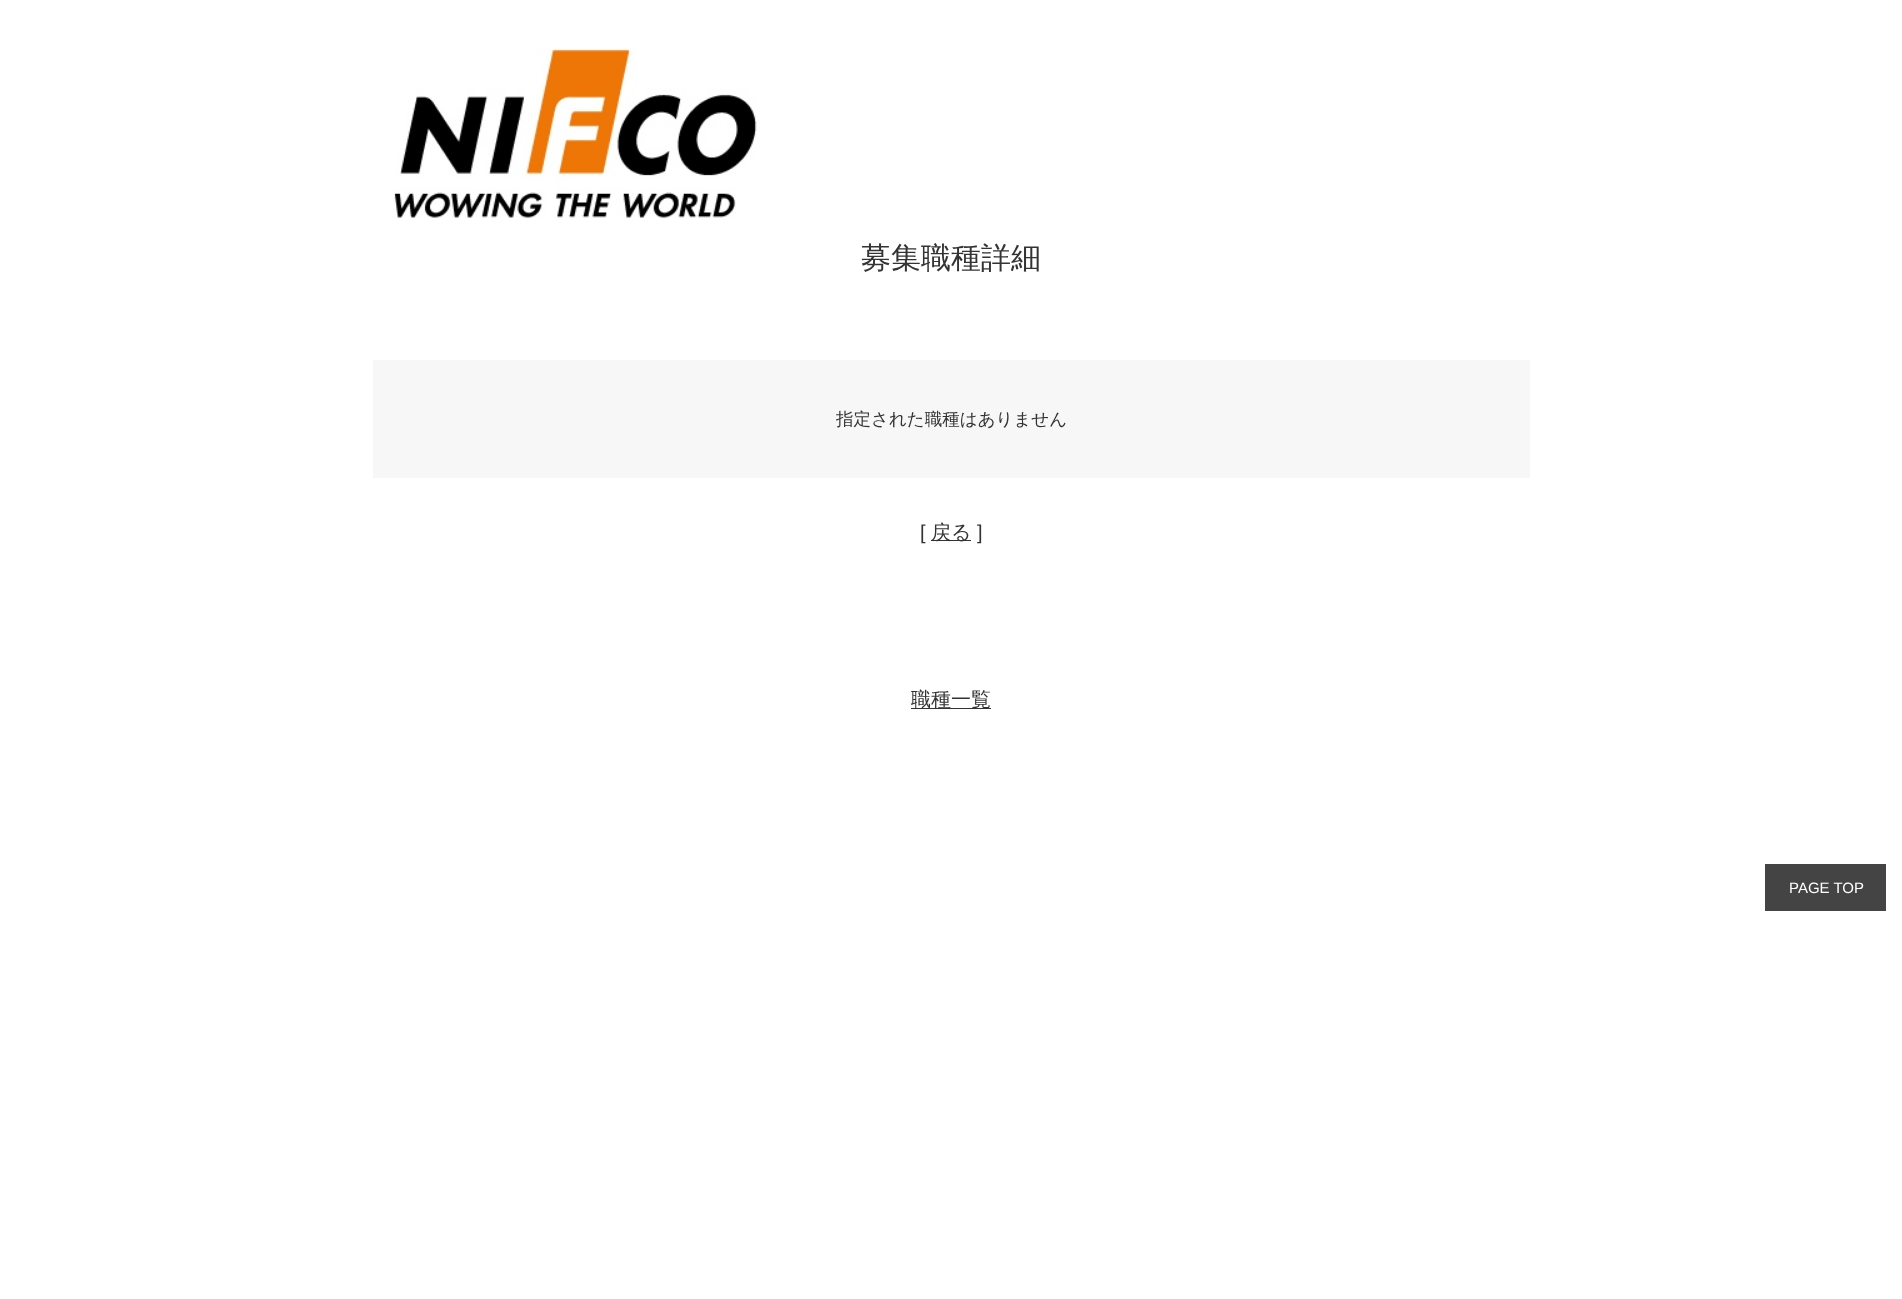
<!DOCTYPE html>
<meta charset="utf-8">
<style>body { margin: 0 } canvas { display: block }</style>
<canvas id="canvas" width="1902" height="1299"></canvas>
<img id="img1" src="images/1.png" hidden>
<script>
window.onload = function () {
    const canvas = document.getElementById('canvas');
    const context = canvas.getContext('2d');
    context.miterLimit = 4;
    context.fontKerning = 'normal';

    context.fillStyle = 'rgb(255, 255, 255)';
    context.fillRect(0, 0, 1902, 1299);
    context.drawImage(document.getElementById('img1'), 394, 48, 363, 170);
    context.fillStyle = 'rgb(247, 247, 247)';
    context.fillRect(373, 360, 1157, 118);
    context.fillStyle = 'rgb(51, 51, 51)';
    context.fillRect(931, 540, 40, 1);
    context.fillRect(911, 708, 80, 1);
    context.fillStyle = 'rgb(68, 68, 68)';
    context.fillRect(1765, 864, 121, 47);
    context.font = '500 30px WenQuanYi Zen Hei';
    context.fillStyle = 'rgb(51, 51, 51)';
    context.fillText('募集職種詳細', 861, 268);
    context.font = '500 17.5px WenQuanYi Zen Hei';
    context.fillText('指定された職種はありません', 836, 425);
    context.font = '20px Liberation Sans';
    context.fillText('[', 920, 539);
    context.font = '500 20px WenQuanYi Zen Hei';
    context.fillText('戻る', 931, 539);
    context.font = '20px Liberation Sans';
    context.fillText(']', 977, 539);
    context.font = '500 20px WenQuanYi Zen Hei';
    context.fillText('職種一覧', 911, 706);
    context.font = '15px Liberation Sans';
    context.fillStyle = 'rgb(255, 255, 255)';
    context.fillText('PAGE TOP', 1789, 893);
};
</script>
